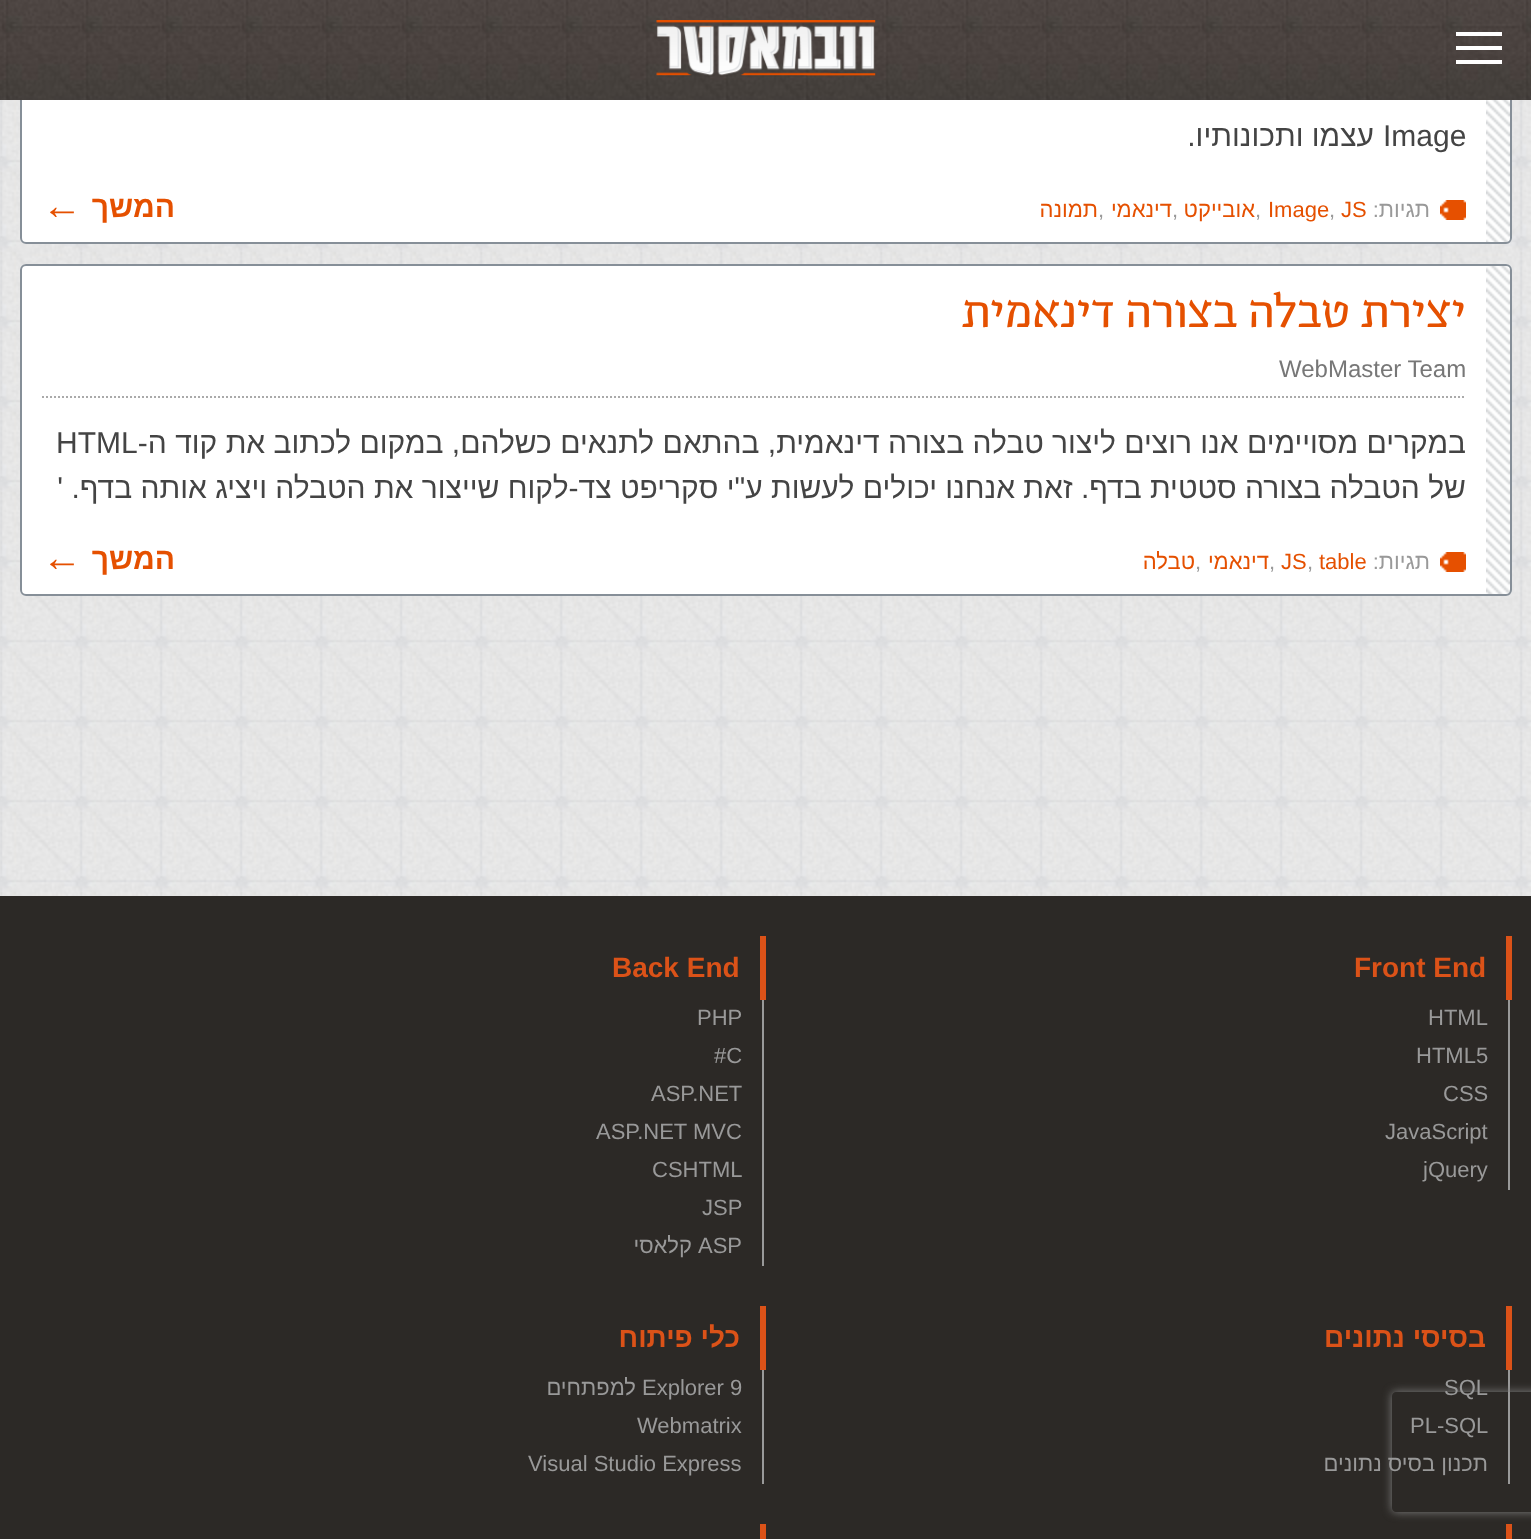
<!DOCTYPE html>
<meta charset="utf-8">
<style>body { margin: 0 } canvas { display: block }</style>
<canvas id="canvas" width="1531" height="1539"></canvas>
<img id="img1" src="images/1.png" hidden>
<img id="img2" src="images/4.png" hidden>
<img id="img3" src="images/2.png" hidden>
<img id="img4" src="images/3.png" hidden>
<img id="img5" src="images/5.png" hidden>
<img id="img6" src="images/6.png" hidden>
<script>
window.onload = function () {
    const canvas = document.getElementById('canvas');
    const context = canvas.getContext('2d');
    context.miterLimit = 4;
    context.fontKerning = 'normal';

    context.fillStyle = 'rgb(255, 255, 255)';
    context.fillRect(0, 0, 1531, 1539);
    context.drawImage(document.getElementById('img1'), 0, 100, 1531, 796);
    context.beginPath();
    context.roundRect(20, -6, 1492, 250, 6);
    context.fill();
    context.drawImage(document.getElementById('img2'), 1486, 100, 24, 144);
    context.beginPath();
    context.roundRect(21, -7, 1490, 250, 5);
    context.strokeStyle = 'rgb(134, 143, 152)';
    context.lineWidth = 2;
    context.stroke();
    context.drawImage(document.getElementById('img3'), 0, 0, 1531, 100);
    context.drawImage(document.getElementById('img4'), 656, 20, 220, 57);
    context.fillRect(1456, 32, 46, 4);
    context.fillRect(1456, 46, 46, 4);
    context.fillRect(1456, 60, 46, 4);
    context.drawImage(document.getElementById('img5'), 1440, 200, 26, 20);
    context.beginPath();
    context.roundRect(20, 264, 1492, 332, 6);
    context.fill();
    context.drawImage(document.getElementById('img6'), 1486, 264, 24, 332);
    context.beginPath();
    context.roundRect(21, 265, 1490, 330, 5);
    context.stroke();
    context.beginPath();
    context.moveTo(42, 397);
    context.lineTo(1466, 397);
    context.strokeStyle = 'rgb(170, 170, 170)';
    context.setLineDash([2, 2]);
    context.stroke();
    context.drawImage(document.getElementById('img5'), 1440, 552, 26, 20);
    context.fillStyle = 'rgb(44, 41, 38)';
    context.fillRect(0, 896, 1531, 643);
    context.fillStyle = 'rgb(219, 82, 24)';
    context.fillRect(1506, 936, 6, 64);
    context.fillStyle = 'rgb(153, 153, 153)';
    context.fillRect(1508, 1000, 2, 190);
    context.fillStyle = 'rgb(219, 82, 24)';
    context.fillRect(760, 936, 6, 64);
    context.fillStyle = 'rgb(153, 153, 153)';
    context.fillRect(762, 1000, 2, 266);
    context.fillStyle = 'rgb(219, 82, 24)';
    context.fillRect(1506, 1306, 6, 64);
    context.fillStyle = 'rgb(153, 153, 153)';
    context.fillRect(1508, 1370, 2, 114);
    context.fillStyle = 'rgb(219, 82, 24)';
    context.fillRect(760, 1306, 6, 64);
    context.fillStyle = 'rgb(153, 153, 153)';
    context.fillRect(762, 1370, 2, 114);
    context.fillStyle = 'rgb(219, 82, 24)';
    context.fillRect(1506, 1524, 6, 15);
    context.fillRect(760, 1524, 6, 15);
    context.save();
    context.beginPath();
    context.moveTo(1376, 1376);
    context.lineTo(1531, 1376);
    context.lineTo(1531, 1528);
    context.lineTo(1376, 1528);
    context.closePath();
    context.moveTo(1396, 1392);
    context.lineTo(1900, 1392);
    context.bezierCurveTo(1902, 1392, 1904, 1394, 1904, 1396);
    context.lineTo(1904, 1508);
    context.bezierCurveTo(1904, 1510, 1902, 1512, 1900, 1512);
    context.lineTo(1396, 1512);
    context.bezierCurveTo(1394, 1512, 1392, 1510, 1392, 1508);
    context.lineTo(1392, 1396);
    context.bezierCurveTo(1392, 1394, 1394, 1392, 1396, 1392);
    context.closePath();
    context.clip('evenodd');
    context.fillStyle = 'rgb(128, 128, 128)';
    context.filter = 'blur(5px)';
    context.beginPath();
    context.roundRect(1392, 1392, 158, 120, 4);
    context.fill();
    context.filter = 'none';
    context.restore();
    context.font = '30px Liberation Sans';
    context.fillStyle = 'rgb(68, 68, 68)';
    context.fillText('Image', 1383, 146);
    context.direction = 'rtl';
    context.fillText('עצמו ותכונותיו.', 1374, 146);
    context.font = '22px Liberation Sans';
    context.fillStyle = 'rgb(153, 153, 153)';
    context.fillText('תגיות:', 1430, 217);
    context.direction = 'ltr';
    context.fillStyle = 'rgb(229, 80, 0)';
    context.fillText('JS', 1341, 217);
    context.fillStyle = 'rgb(153, 153, 153)';
    context.fillText(',', 1329, 217);
    context.fillStyle = 'rgb(229, 80, 0)';
    context.fillText('Image', 1268, 217);
    context.fillStyle = 'rgb(153, 153, 153)';
    context.fillText(',', 1255, 217);
    context.direction = 'rtl';
    context.fillStyle = 'rgb(229, 80, 0)';
    context.fillText('אובייקט', 1255, 217);
    context.direction = 'ltr';
    context.fillStyle = 'rgb(153, 153, 153)';
    context.fillText(',', 1172, 217);
    context.direction = 'rtl';
    context.fillStyle = 'rgb(229, 80, 0)';
    context.fillText('דינאמי', 1172, 217);
    context.direction = 'ltr';
    context.fillStyle = 'rgb(153, 153, 153)';
    context.fillText(',', 1098, 217);
    context.direction = 'rtl';
    context.fillStyle = 'rgb(229, 80, 0)';
    context.fillText('תמונה', 1098, 217);
    context.font = 'bold 30px Liberation Sans';
    context.fillText('המשך', 175, 217);
    context.direction = 'ltr';
    context.font = 'bold 40px Liberation Sans';
    context.fillText('←', 42, 219);
    context.direction = 'rtl';
    context.font = '48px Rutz';
    context.fillText('יצירת טבלה בצורה דינאמית', 1466, 327);
    context.direction = 'ltr';
    context.font = '24px Liberation Sans';
    context.fillStyle = 'rgb(119, 119, 119)';
    context.fillText('WebMaster Team', 1279, 377);
    context.direction = 'rtl';
    context.font = '30px Liberation Sans';
    context.fillStyle = 'rgb(68, 68, 68)';
    context.fillText('במקרים מסויימים אנו רוצים ליצור טבלה בצורה דינאמית, בהתאם לתנאים כשלהם, במקום לכתוב את קוד ה-', 1466, 453);
    context.direction = 'ltr';
    context.fillText('HTML', 56, 453);
    context.direction = 'rtl';
    context.fillText('של הטבלה בצורה סטטית בדף. זאת אנחנו יכולים לעשות ע"י סקריפט צד-לקוח שייצור את הטבלה ויציג אותה בדף. \'', 1466, 498);
    context.font = '22px Liberation Sans';
    context.fillStyle = 'rgb(153, 153, 153)';
    context.fillText('תגיות:', 1430, 569);
    context.direction = 'ltr';
    context.fillStyle = 'rgb(229, 80, 0)';
    context.fillText('table', 1319, 569);
    context.fillStyle = 'rgb(153, 153, 153)';
    context.fillText(',', 1307, 569);
    context.fillStyle = 'rgb(229, 80, 0)';
    context.fillText('JS', 1281, 569);
    context.fillStyle = 'rgb(153, 153, 153)';
    context.fillText(',', 1269, 569);
    context.direction = 'rtl';
    context.fillStyle = 'rgb(229, 80, 0)';
    context.fillText('דינאמי', 1269, 569);
    context.direction = 'ltr';
    context.fillStyle = 'rgb(153, 153, 153)';
    context.fillText(',', 1195, 569);
    context.direction = 'rtl';
    context.fillStyle = 'rgb(229, 80, 0)';
    context.fillText('טבלה', 1195, 569);
    context.font = 'bold 30px Liberation Sans';
    context.fillText('המשך', 175, 569);
    context.direction = 'ltr';
    context.font = 'bold 40px Liberation Sans';
    context.fillText('←', 42, 571);
    context.font = 'bold 28px Liberation Sans';
    context.fillStyle = 'rgb(219, 82, 24)';
    context.fillText('Front End', 1354, 977);
    context.font = '22px Liberation Sans';
    context.fillStyle = 'rgb(153, 153, 153)';
    context.fillText('HTML', 1428, 1025);
    context.fillText('HTML5', 1416, 1063);
    context.fillText('CSS', 1443, 1101);
    context.fillText('JavaScript', 1385, 1139);
    context.fillText('jQuery', 1423, 1177);
    context.font = 'bold 28px Liberation Sans';
    context.fillStyle = 'rgb(219, 82, 24)';
    context.fillText('Back End', 612, 977);
    context.font = '22px Liberation Sans';
    context.fillStyle = 'rgb(153, 153, 153)';
    context.fillText('PHP', 697, 1025);
    context.fillText('#C', 714, 1063);
    context.fillText('ASP.NET', 651, 1101);
    context.fillText('ASP.NET MVC', 596, 1139);
    context.fillText('CSHTML', 652, 1177);
    context.fillText('JSP', 702, 1215);
    context.fillText('ASP', 698, 1253);
    context.direction = 'rtl';
    context.fillText('קלאסי', 692, 1253);
    context.font = 'bold 28px Liberation Sans';
    context.fillStyle = 'rgb(219, 82, 24)';
    context.fillText('בסיסי נתונים', 1486, 1347);
    context.direction = 'ltr';
    context.font = '22px Liberation Sans';
    context.fillStyle = 'rgb(153, 153, 153)';
    context.fillText('SQL', 1444, 1395);
    context.fillText('PL-SQL', 1410, 1433);
    context.direction = 'rtl';
    context.fillText('תכנון בסיס נתונים', 1488, 1471);
    context.font = 'bold 28px Liberation Sans';
    context.fillStyle = 'rgb(219, 82, 24)';
    context.fillText('כלי פיתוח', 740, 1347);
    context.direction = 'ltr';
    context.font = '22px Liberation Sans';
    context.fillStyle = 'rgb(153, 153, 153)';
    context.fillText('Explorer 9', 642, 1395);
    context.direction = 'rtl';
    context.fillText('למפתחים', 636, 1395);
    context.direction = 'ltr';
    context.fillText('Webmatrix', 637, 1433);
    context.fillText('Visual Studio Express', 528, 1471);
};
</script>
